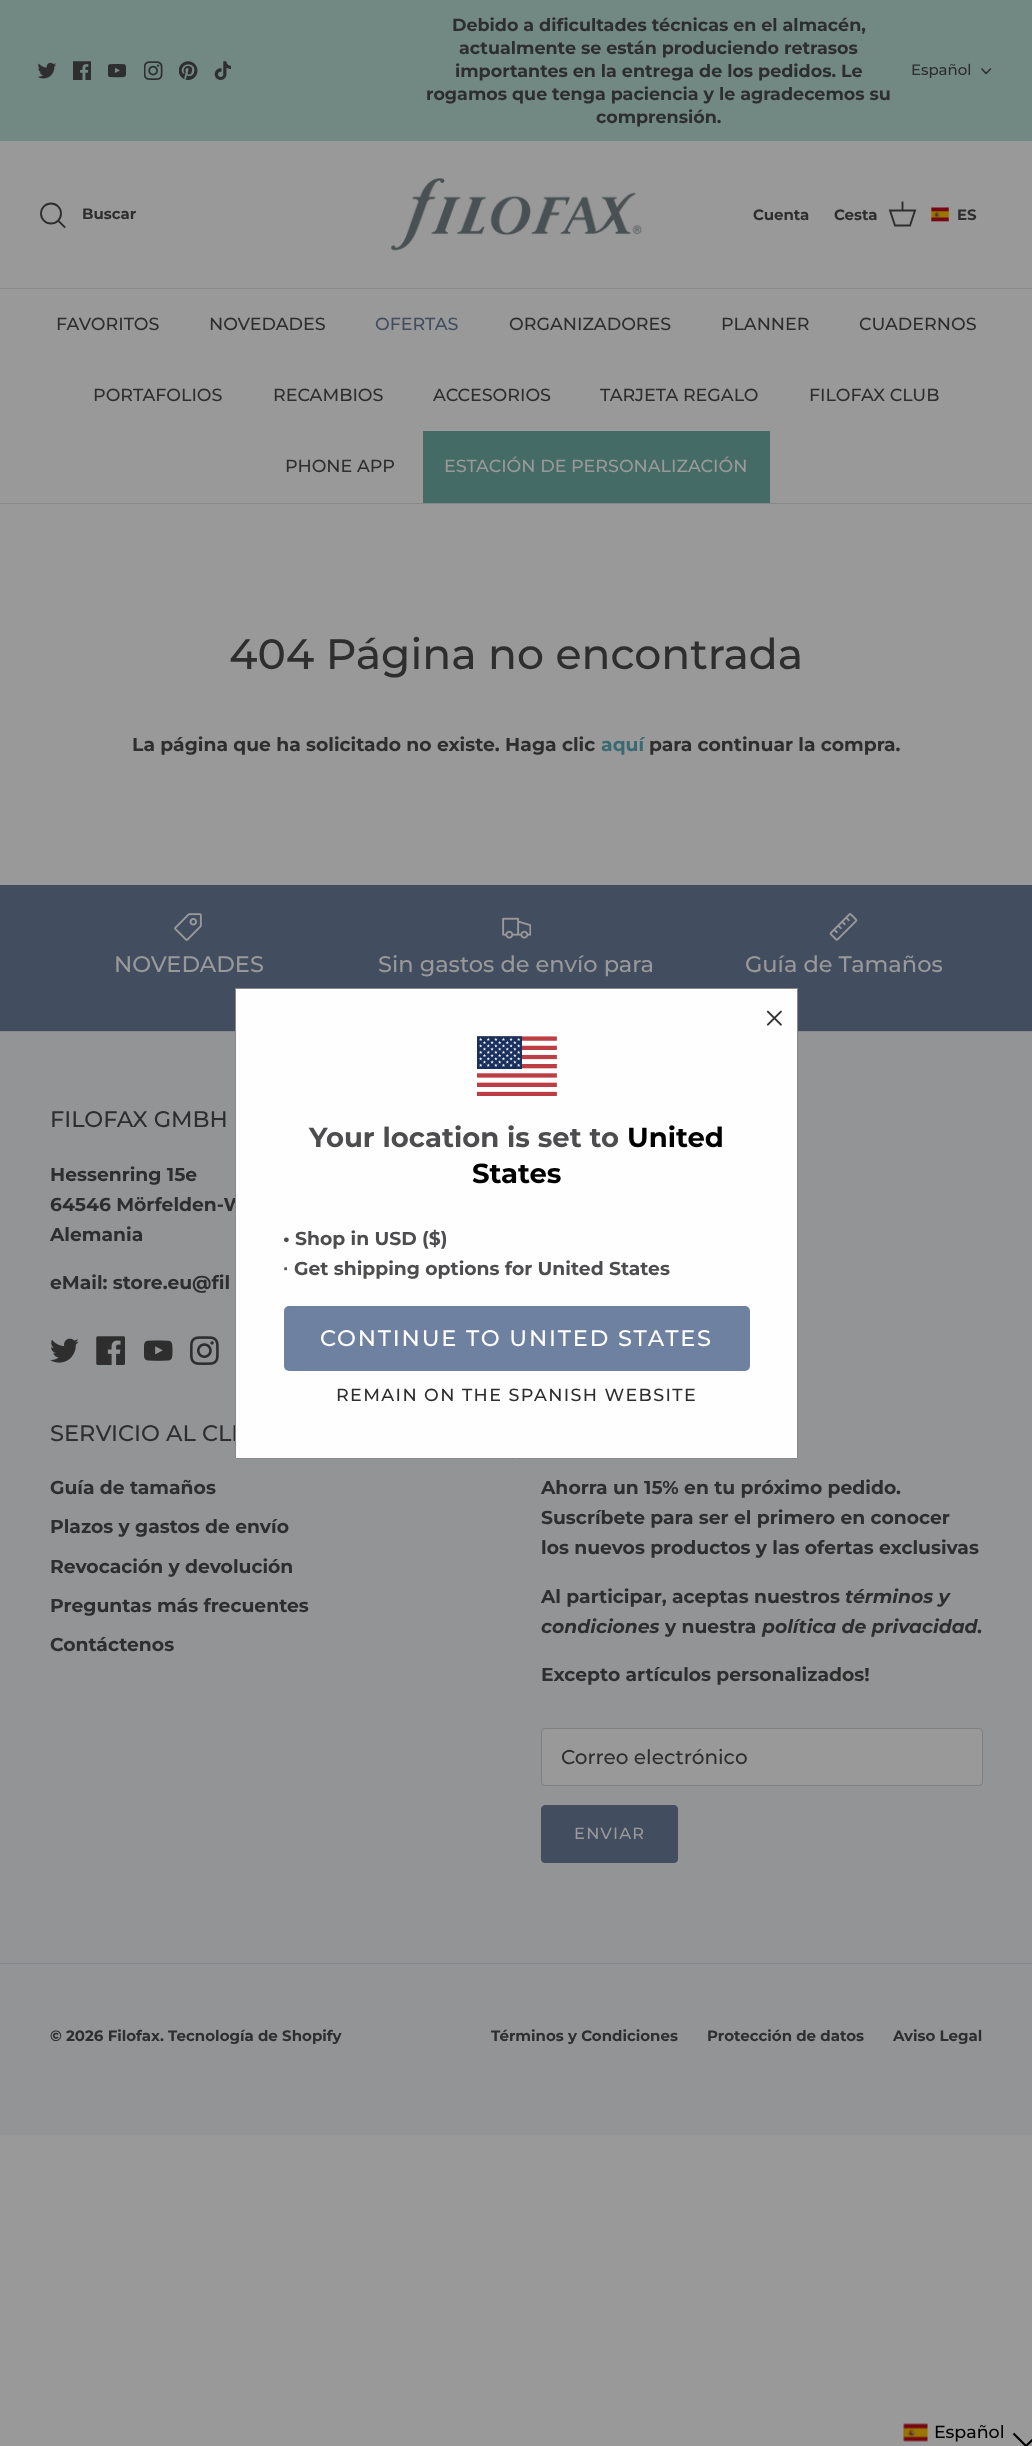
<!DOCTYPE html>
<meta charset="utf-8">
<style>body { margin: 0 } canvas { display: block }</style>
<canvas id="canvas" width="1032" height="2446"></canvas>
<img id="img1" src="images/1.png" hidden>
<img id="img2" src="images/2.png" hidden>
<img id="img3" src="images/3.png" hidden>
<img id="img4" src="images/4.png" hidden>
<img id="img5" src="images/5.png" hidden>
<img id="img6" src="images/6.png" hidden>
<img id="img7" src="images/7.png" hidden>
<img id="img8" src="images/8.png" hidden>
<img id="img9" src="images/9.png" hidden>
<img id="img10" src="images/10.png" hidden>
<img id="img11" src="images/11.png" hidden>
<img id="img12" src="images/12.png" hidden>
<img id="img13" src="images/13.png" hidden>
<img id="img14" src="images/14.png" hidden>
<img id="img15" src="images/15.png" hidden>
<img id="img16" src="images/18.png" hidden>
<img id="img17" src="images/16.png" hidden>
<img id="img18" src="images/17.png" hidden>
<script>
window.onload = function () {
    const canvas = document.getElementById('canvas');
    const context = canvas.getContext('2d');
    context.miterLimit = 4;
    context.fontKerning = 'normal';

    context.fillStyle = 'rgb(153, 153, 153)';
    context.fillRect(0, 0, 1032, 2446);
    context.fillStyle = 'rgb(113, 136, 131)';
    context.fillRect(0, 0, 1032, 141);
    context.drawImage(document.getElementById('img1'), 38, 62, 18, 17);
    context.drawImage(document.getElementById('img2'), 73, 61, 18, 19);
    context.drawImage(document.getElementById('img3'), 108, 64, 18, 14);
    context.drawImage(document.getElementById('img4'), 144, 61, 19, 19);
    context.drawImage(document.getElementById('img5'), 179, 61, 19, 19);
    context.drawImage(document.getElementById('img6'), 214, 61, 17, 19);
    context.beginPath();
    context.moveTo(982, 69);
    context.lineTo(986, 73.5);
    context.lineTo(990.5, 69);
    context.strokeStyle = 'rgb(46, 46, 47)';
    context.lineWidth = 1.5;
    context.lineCap = 'round';
    context.lineJoin = 'round';
    context.stroke();
    context.fillStyle = 'rgb(134, 136, 139)';
    context.fillRect(0, 288, 1032, 1);
    context.beginPath();
    context.arc(51, 213.5, 10, 0, 2 * Math.PI);
    context.lineWidth = 1.9;
    context.stroke();
    context.beginPath();
    context.moveTo(58.5, 221);
    context.lineTo(64.5, 227);
    context.lineCap = 'square';
    context.lineJoin = 'miter';
    context.stroke();
    context.drawImage(document.getElementById('img7'), 391, 178, 251, 73);
    context.beginPath();
    context.moveTo(890, 210.5);
    context.lineTo(915, 210.5);
    context.lineTo(910, 225.5);
    context.lineTo(895, 225.5);
    context.closePath();
    context.lineCap = 'butt';
    context.stroke();
    context.beginPath();
    context.moveTo(902.5, 210);
    context.lineTo(902.5, 202.5);
    context.lineCap = 'square';
    context.stroke();
    context.drawImage(document.getElementById('img8'), 931, 207, 18, 15);
    context.fillRect(0, 503, 1032, 1);
    context.fillStyle = 'rgb(69, 107, 103)';
    context.fillRect(423, 431, 347, 72);
    context.fillStyle = 'rgb(146, 148, 149)';
    context.fillRect(0, 1032, 1032, 1103);
    context.fillStyle = 'rgb(67, 77, 96)';
    context.fillRect(0, 885, 1032, 146);
    context.drawImage(document.getElementById('img9'), 174, 913, 28, 28);
    context.drawImage(document.getElementById('img10'), 502, 917, 29, 22);
    context.drawImage(document.getElementById('img11'), 829, 913, 29, 28);
    context.fillStyle = 'rgb(134, 136, 139)';
    context.fillRect(0, 1031, 1032, 1);
    context.drawImage(document.getElementById('img12'), 50, 1338, 29, 25);
    context.drawImage(document.getElementById('img13'), 96, 1336, 29, 29);
    context.drawImage(document.getElementById('img14'), 144, 1340, 29, 21);
    context.drawImage(document.getElementById('img15'), 190, 1336, 29, 29);
    context.fillStyle = 'rgb(153, 153, 153)';
    context.beginPath();
    context.roundRect(541.5, 1728.5, 441, 57, 3.5);
    context.fill();
    context.strokeStyle = 'rgb(127, 127, 127)';
    context.lineWidth = 1;
    context.stroke();
    context.fillStyle = 'rgb(67, 77, 96)';
    context.beginPath();
    context.roundRect(541.5, 1805.5, 136, 57, 3.5);
    context.fill();
    context.strokeStyle = 'rgb(67, 77, 96)';
    context.stroke();
    context.fillStyle = 'rgb(134, 136, 139)';
    context.fillRect(0, 1963, 1032, 1);
    context.drawImage(document.getElementById('img16'), 903, 2423, 25, 19);
    context.beginPath();
    context.moveTo(1013.5, 2433.5);
    context.lineTo(1026, 2446);
    context.lineTo(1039, 2433.5);
    context.strokeStyle = 'rgb(0, 0, 0)';
    context.lineWidth = 2.1;
    context.lineCap = 'butt';
    context.stroke();
    context.font = 'bold 17.5px Montserrat';
    context.fillStyle = 'rgb(46, 46, 47)';
    context.fillText('Debido a dificultades técnicas en el almacén,', 452, 31);
    context.fillText('actualmente se están produciendo retrasos', 459, 54);
    context.fillText('importantes en la entrega de los pedidos. Le', 455, 77);
    context.fillText('rogamos que tenga paciencia y le agradecemos su', 426, 100);
    context.fillText('comprensión.', 596, 123);
    context.font = '500 15px Montserrat';
    context.fillText('Español', 911, 75);
    context.font = 'bold 15px Montserrat';
    context.fillText('Buscar', 82, 219);
    context.fillText('Cuenta', 753, 220);
    context.fillText('Cesta', 834, 220);
    context.fillText('ES', 957, 220);
    context.font = '500 17.5px Montserrat';
    context.fillText('FAVORITOS', 56, 330);
    context.fillText('NOVEDADES', 209, 330);
    context.fillStyle = 'rgb(67, 77, 96)';
    context.fillText('OFERTAS', 375, 330);
    context.fillStyle = 'rgb(46, 46, 47)';
    context.fillText('ORGANIZADORES', 509, 330);
    context.fillText('PLANNER', 721, 330);
    context.fillText('CUADERNOS', 859, 330);
    context.fillText('PORTAFOLIOS', 93, 401);
    context.fillText('RECAMBIOS', 273, 401);
    context.fillText('ACCESORIOS', 433, 401);
    context.fillText('TARJETA REGALO', 600, 401);
    context.fillText('FILOFAX CLUB', 809, 401);
    context.fillText('PHONE APP', 285, 472);
    context.fillStyle = 'rgb(153, 153, 153)';
    context.fillText('ESTACIÓN DE PERSONALIZACIÓN', 444, 472);
    context.font = '500 42.5px Montserrat';
    context.fillStyle = 'rgb(46, 46, 47)';
    context.fillText('404 Página no encontrada', 229, 669);
    context.font = 'bold 18.75px Montserrat';
    context.fillText('La página que ha solicitado no existe. Haga clic', 132, 751);
    context.fillStyle = 'rgb(58, 106, 113)';
    context.fillText('aquí', 601, 751);
    context.fillStyle = 'rgb(46, 46, 47)';
    context.fillText('para continuar la compra.', 649, 751);
    context.font = '500 22.5px Montserrat';
    context.fillStyle = 'rgb(153, 153, 153)';
    context.fillText('NOVEDADES', 114, 972);
    context.fillText('Sin gastos de envío para', 378, 972);
    context.fillText('Guía de Tamaños', 745, 972);
    context.fillStyle = 'rgb(46, 46, 47)';
    context.fillText('FILOFAX GMBH', 50, 1127);
    context.font = 'bold 18.75px Montserrat';
    context.fillText('Hessenring 15e', 50, 1181);
    context.fillText('64546 Mörfelden-W', 50, 1211);
    context.fillText('Alemania', 50, 1241);
    context.fillText('eMail: store.eu@fil', 50, 1289);
    context.font = '500 22.5px Montserrat';
    context.fillText('SERVICIO AL CLI', 50, 1441);
    context.font = 'bold 18.75px Montserrat';
    context.fillText('Guía de tamaños', 50, 1494);
    context.fillText('Plazos y gastos de envío', 50, 1533);
    context.fillText('Revocación y devolución', 50, 1573);
    context.fillText('Preguntas más frecuentes', 50, 1612);
    context.fillText('Contáctenos', 50, 1651);
    context.fillText('Ahorra un 15% en tu próximo pedido.', 541, 1494);
    context.fillText('Suscríbete para ser el primero en conocer', 541, 1524);
    context.fillText('los nuevos productos y las ofertas exclusivas', 541, 1554);
    context.fillText('Al participar, aceptas nuestros', 541, 1603);
    context.font = 'italic bold 18.75px Montserrat';
    context.fillText('términos y', 845, 1603);
    context.fillText('condiciones', 541, 1633);
    context.font = 'bold 18.75px Montserrat';
    context.fillText('y nuestra', 665, 1633);
    context.font = 'italic bold 18.75px Montserrat';
    context.fillText('política de privacidad', 762, 1633);
    context.font = 'bold 18.75px Montserrat';
    context.fillText('.', 977, 1633);
    context.fillText('Excepto artículos personalizados!', 541, 1681);
    context.font = '500 20px Montserrat';
    context.fillText('Correo electrónico', 561, 1764);
    context.letterSpacing = '1.25px';
    context.font = '500 16.25px Montserrat';
    context.fillStyle = 'rgb(153, 153, 153)';
    context.fillText('ENVIAR', 574, 1839);
    context.letterSpacing = '0px';
    context.font = 'bold 15px Montserrat';
    context.fillStyle = 'rgb(46, 46, 47)';
    context.fillText('© 2026 Filofax. Tecnología de Shopify', 50, 2041);
    context.fillText('Términos y Condiciones', 491, 2041);
    context.fillText('Protección de datos', 707, 2041);
    context.fillText('Aviso Legal', 893, 2041);
    context.fillStyle = 'rgb(254, 254, 254)';
    context.beginPath();
    context.rect(235.5, 988.5, 562, 470);
    context.fill();
    context.strokeStyle = 'rgb(136, 136, 136)';
    context.lineWidth = 1;
    context.stroke();
    context.drawImage(document.getElementById('img17'), 766, 1010, 16, 16);
    context.drawImage(document.getElementById('img18'), 477, 1036, 80, 60);
    context.font = 'bold 27.5px Montserrat';
    context.fillStyle = 'rgb(77, 77, 79)';
    context.fillText('Your location is set to', 309, 1147);
    context.fillStyle = 'rgb(0, 0, 0)';
    context.fillText('United', 627, 1147);
    context.fillText('States', 472, 1183);
    context.font = 'bold 18.75px Montserrat';
    context.fillStyle = 'rgb(77, 77, 79)';
    context.fillText('• Shop in USD ($)', 283, 1245);
    context.font = 'bold 18.75px Liberation Sans';
    context.fillText('∙', 283, 1275);
    context.font = 'bold 18.75px Montserrat';
    context.fillText('Get shipping options for United States', 294, 1275);
    context.fillStyle = 'rgb(111, 129, 160)';
    context.beginPath();
    context.roundRect(284, 1306, 466, 65, 5);
    context.fill();
    context.letterSpacing = '1.8px';
    context.font = '500 22.5px Montserrat';
    context.fillStyle = 'rgb(255, 255, 255)';
    context.fillText('CONTINUE TO UNITED STATES', 320, 1346);
    context.letterSpacing = '1.4px';
    context.font = '500 17.5px Montserrat';
    context.fillStyle = 'rgb(46, 46, 47)';
    context.fillText('REMAIN ON THE SPANISH WEBSITE', 336, 1401);
    context.letterSpacing = '0px';
    context.fillStyle = 'rgb(0, 0, 0)';
    context.fillText('Español', 934, 2438);
};
</script>
